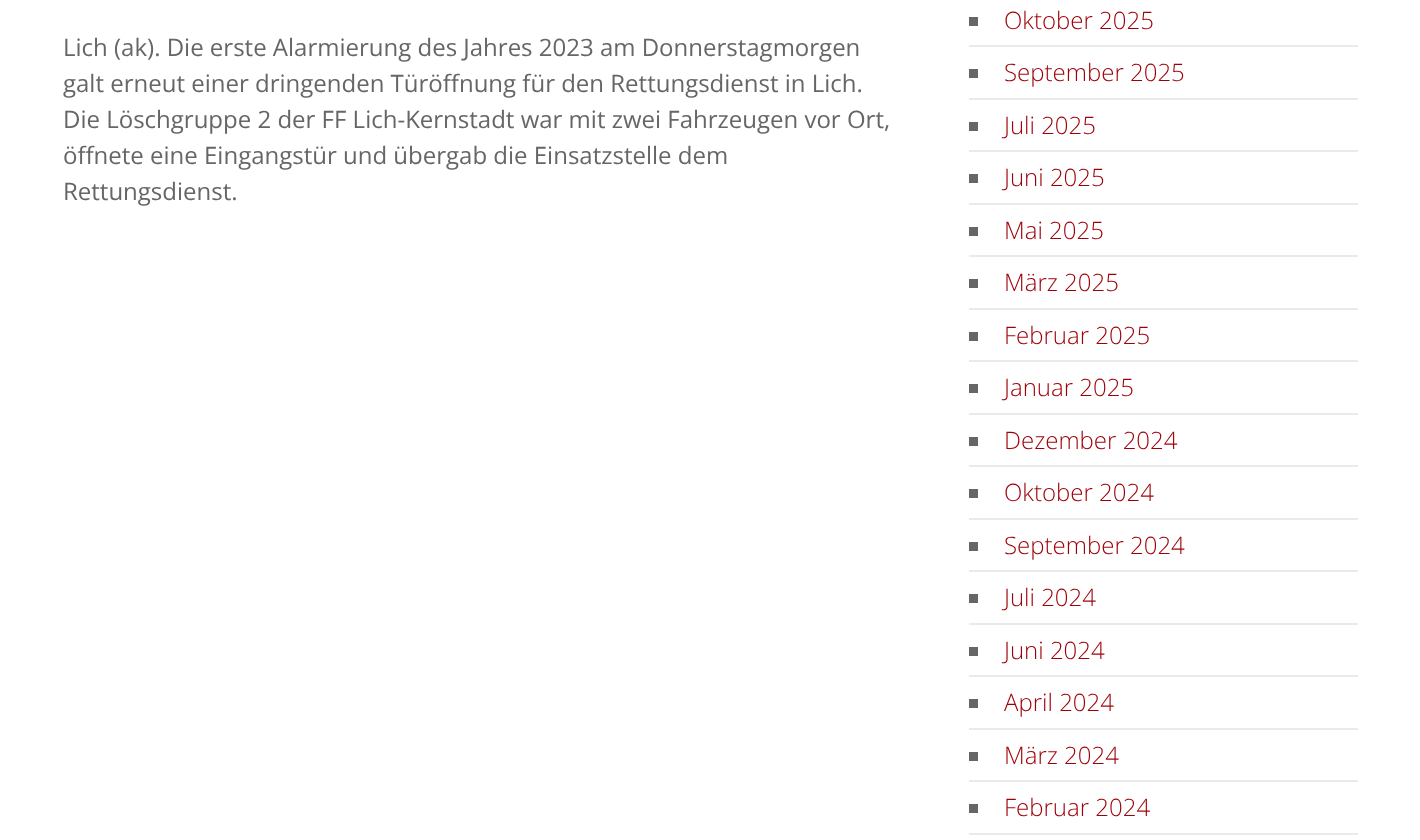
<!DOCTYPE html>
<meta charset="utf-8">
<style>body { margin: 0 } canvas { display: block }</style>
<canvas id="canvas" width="1420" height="840"></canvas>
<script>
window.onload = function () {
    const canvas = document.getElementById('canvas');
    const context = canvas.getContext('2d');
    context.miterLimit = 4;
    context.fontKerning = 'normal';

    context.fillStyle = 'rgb(255, 255, 255)';
    context.fillRect(0, 0, 1420, 840);
    context.fillStyle = 'rgb(234, 234, 234)';
    context.fillRect(969, 45, 389, 2);
    context.fillStyle = 'rgb(102, 102, 102)';
    context.fillRect(969, 17, 9, 9);
    context.fillStyle = 'rgb(234, 234, 234)';
    context.fillRect(969, 98, 389, 2);
    context.fillStyle = 'rgb(102, 102, 102)';
    context.fillRect(969, 69, 9, 9);
    context.fillStyle = 'rgb(234, 234, 234)';
    context.fillRect(969, 150, 389, 2);
    context.fillStyle = 'rgb(102, 102, 102)';
    context.fillRect(969, 122, 9, 9);
    context.fillStyle = 'rgb(234, 234, 234)';
    context.fillRect(969, 203, 389, 2);
    context.fillStyle = 'rgb(102, 102, 102)';
    context.fillRect(969, 174, 9, 9);
    context.fillStyle = 'rgb(234, 234, 234)';
    context.fillRect(969, 255, 389, 2);
    context.fillStyle = 'rgb(102, 102, 102)';
    context.fillRect(969, 227, 9, 9);
    context.fillStyle = 'rgb(234, 234, 234)';
    context.fillRect(969, 308, 389, 2);
    context.fillStyle = 'rgb(102, 102, 102)';
    context.fillRect(969, 279, 9, 9);
    context.fillStyle = 'rgb(234, 234, 234)';
    context.fillRect(969, 360, 389, 2);
    context.fillStyle = 'rgb(102, 102, 102)';
    context.fillRect(969, 332, 9, 9);
    context.fillStyle = 'rgb(234, 234, 234)';
    context.fillRect(969, 413, 389, 2);
    context.fillStyle = 'rgb(102, 102, 102)';
    context.fillRect(969, 384, 9, 9);
    context.fillStyle = 'rgb(234, 234, 234)';
    context.fillRect(969, 465, 389, 2);
    context.fillStyle = 'rgb(102, 102, 102)';
    context.fillRect(969, 437, 9, 9);
    context.fillStyle = 'rgb(234, 234, 234)';
    context.fillRect(969, 518, 389, 2);
    context.fillStyle = 'rgb(102, 102, 102)';
    context.fillRect(969, 489, 9, 9);
    context.fillStyle = 'rgb(234, 234, 234)';
    context.fillRect(969, 570, 389, 2);
    context.fillStyle = 'rgb(102, 102, 102)';
    context.fillRect(969, 542, 9, 9);
    context.fillStyle = 'rgb(234, 234, 234)';
    context.fillRect(969, 623, 389, 2);
    context.fillStyle = 'rgb(102, 102, 102)';
    context.fillRect(969, 594, 9, 9);
    context.fillStyle = 'rgb(234, 234, 234)';
    context.fillRect(969, 675, 389, 2);
    context.fillStyle = 'rgb(102, 102, 102)';
    context.fillRect(969, 647, 9, 9);
    context.fillStyle = 'rgb(234, 234, 234)';
    context.fillRect(969, 728, 389, 2);
    context.fillStyle = 'rgb(102, 102, 102)';
    context.fillRect(969, 699, 9, 9);
    context.fillStyle = 'rgb(234, 234, 234)';
    context.fillRect(969, 780, 389, 2);
    context.fillStyle = 'rgb(102, 102, 102)';
    context.fillRect(969, 752, 9, 9);
    context.fillStyle = 'rgb(234, 234, 234)';
    context.fillRect(969, 833, 389, 2);
    context.fillStyle = 'rgb(102, 102, 102)';
    context.fillRect(969, 804, 9, 9);
    context.font = '24px Open Sans';
    context.fillText('Lich (ak). Die erste Alarmierung des Jahres 2023 am Donnerstagmorgen', 63, 56);
    context.fillText('galt erneut einer dringenden Türöffnung für den Rettungsdienst in Lich.', 63, 92);
    context.fillText('Die Löschgruppe 2 der FF Lich-Kernstadt war mit zwei Fahrzeugen vor Ort,', 63, 128);
    context.fillText('öffnete eine Eingangstür und übergab die Einsatzstelle dem', 63, 164);
    context.fillText('Rettungsdienst.', 63, 200);
    context.font = '300 24px Open Sans';
    context.fillStyle = 'rgb(158, 0, 8)';
    context.fillText('Oktober 2025', 1004, 29);
    context.fillText('September 2025', 1004, 81);
    context.fillText('Juli 2025', 1004, 134);
    context.fillText('Juni 2025', 1004, 186);
    context.fillText('Mai 2025', 1004, 239);
    context.fillText('März 2025', 1004, 291);
    context.fillText('Februar 2025', 1004, 344);
    context.fillText('Januar 2025', 1004, 396);
    context.fillText('Dezember 2024', 1004, 449);
    context.fillText('Oktober 2024', 1004, 501);
    context.fillText('September 2024', 1004, 554);
    context.fillText('Juli 2024', 1004, 606);
    context.fillText('Juni 2024', 1004, 659);
    context.fillText('April 2024', 1004, 711);
    context.fillText('März 2024', 1004, 764);
    context.fillText('Februar 2024', 1004, 816);
};
</script>
